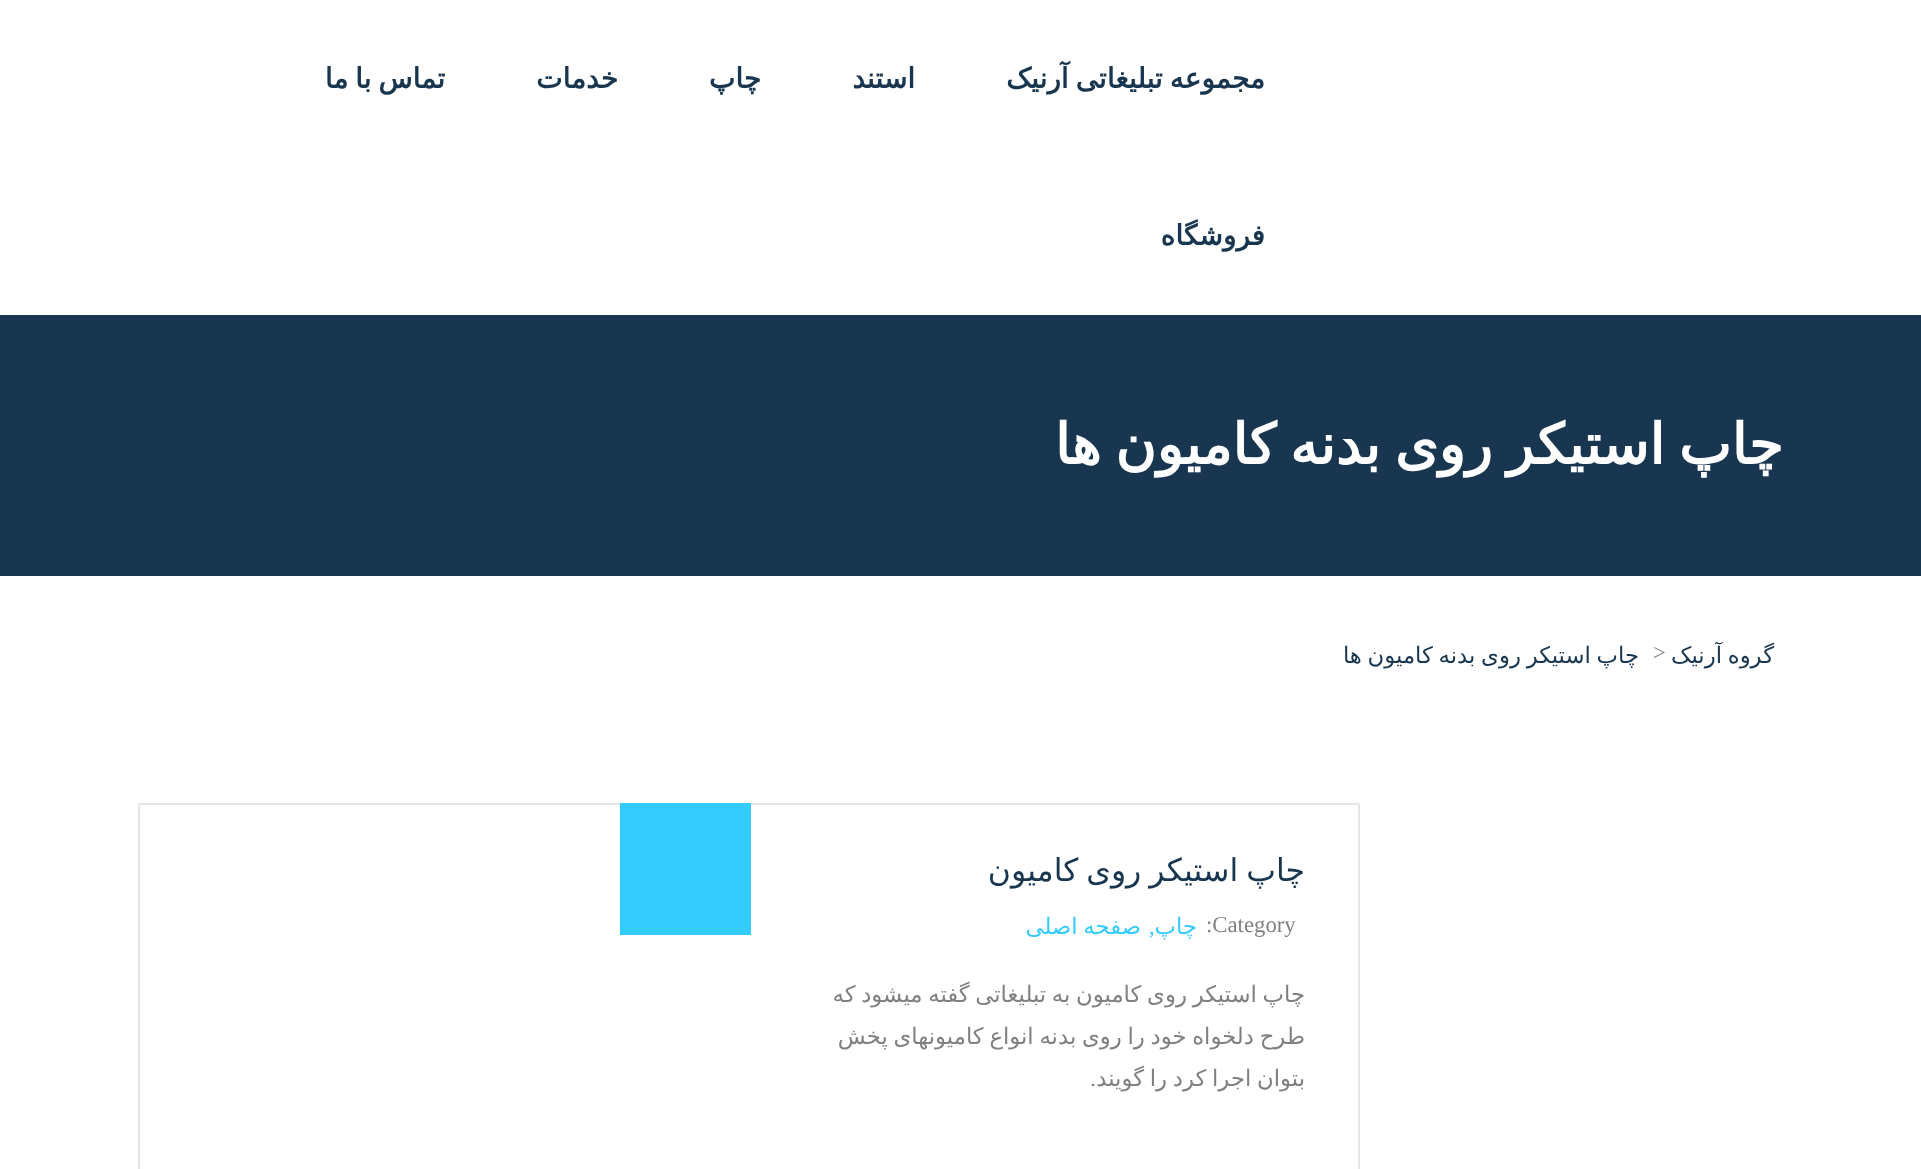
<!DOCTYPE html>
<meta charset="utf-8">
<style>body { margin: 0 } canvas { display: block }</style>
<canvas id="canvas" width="1921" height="1169"></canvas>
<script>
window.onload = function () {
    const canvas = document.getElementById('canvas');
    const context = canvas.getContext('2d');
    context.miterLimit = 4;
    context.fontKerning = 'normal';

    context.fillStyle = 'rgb(255, 255, 255)';
    context.fillRect(0, 0, 1921, 1169);
    context.fillStyle = 'rgb(24, 54, 80)';
    context.fillRect(0, 315, 1921, 261);
    context.beginPath();
    context.roundRect(139, 804, 1220, 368, 1);
    context.strokeStyle = 'rgb(230, 230, 230)';
    context.lineWidth = 2;
    context.stroke();
    context.fillStyle = 'rgb(52, 204, 255)';
    context.fillRect(620, 803, 131, 132);
    context.wordSpacing = '-2px';
    context.direction = 'rtl';
    context.font = 'bold 28px DejaVu Sans';
    context.fillStyle = 'rgb(24, 54, 80)';
    context.fillText('مجموعه تبلیغاتی آرنیک', 1265, 88);
    context.wordSpacing = '0px';
    context.fillText('استند', 915, 88);
    context.fillText('چاپ', 761, 88);
    context.fillText('خدمات', 618, 88);
    context.wordSpacing = '-2px';
    context.fillText('تماس با ما', 445, 88);
    context.wordSpacing = '0px';
    context.fillText('فروشگاه', 1265, 245);
    context.wordSpacing = '-3.75px';
    context.font = 'bold 56px DejaVu Sans';
    context.fillStyle = 'rgb(255, 255, 255)';
    context.fillText('چاپ استیکر روی بدنه کامیون ها', 1783, 464);
    context.wordSpacing = '-1.5px';
    context.font = '22.75px DejaVu Sans';
    context.fillStyle = 'rgb(24, 54, 80)';
    context.fillText('گروه آرنیک', 1774, 663);
    context.wordSpacing = '0px';
    context.direction = 'ltr';
    context.font = '22.75px Liberation Serif';
    context.fillStyle = 'rgb(128, 128, 128)';
    context.fillText('>', 1653, 660);
    context.wordSpacing = '-1.5px';
    context.direction = 'rtl';
    context.font = '22.75px DejaVu Sans';
    context.fillStyle = 'rgb(24, 54, 80)';
    context.fillText('چاپ استیکر روی بدنه کامیون ها', 1639, 663);
    context.wordSpacing = '-2px';
    context.font = '31.5px DejaVu Sans';
    context.fillText('چاپ استیکر روی کامیون', 1305, 881);
    context.wordSpacing = '0px';
    context.direction = 'ltr';
    context.font = '22.75px Liberation Serif';
    context.fillStyle = 'rgb(128, 128, 128)';
    context.fillText(':Category', 1206, 932);
    context.direction = 'rtl';
    context.font = '22.75px DejaVu Sans';
    context.fillStyle = 'rgb(52, 204, 255)';
    context.fillText('چاپ', 1197, 934);
    context.direction = 'ltr';
    context.font = '22.75px Liberation Serif';
    context.fillText(',', 1149, 934);
    context.wordSpacing = '-1.5px';
    context.direction = 'rtl';
    context.font = '22.75px DejaVu Sans';
    context.fillText('صفحه اصلی', 1141, 934);
    context.fillStyle = 'rgb(128, 128, 128)';
    context.fillText('چاپ استیکر روی کامیون به تبلیغاتی گفته میشود که', 1305, 1002);
    context.fillText('طرح دلخواه خود را روی بدنه انواع کامیونهای پخش', 1305, 1044);
    context.fillText('بتوان اجرا کرد را گویند', 1305, 1086);
    context.wordSpacing = '0px';
    context.font = '22.75px Liberation Serif';
    context.fillText('.', 1096, 1086);
};
</script>
